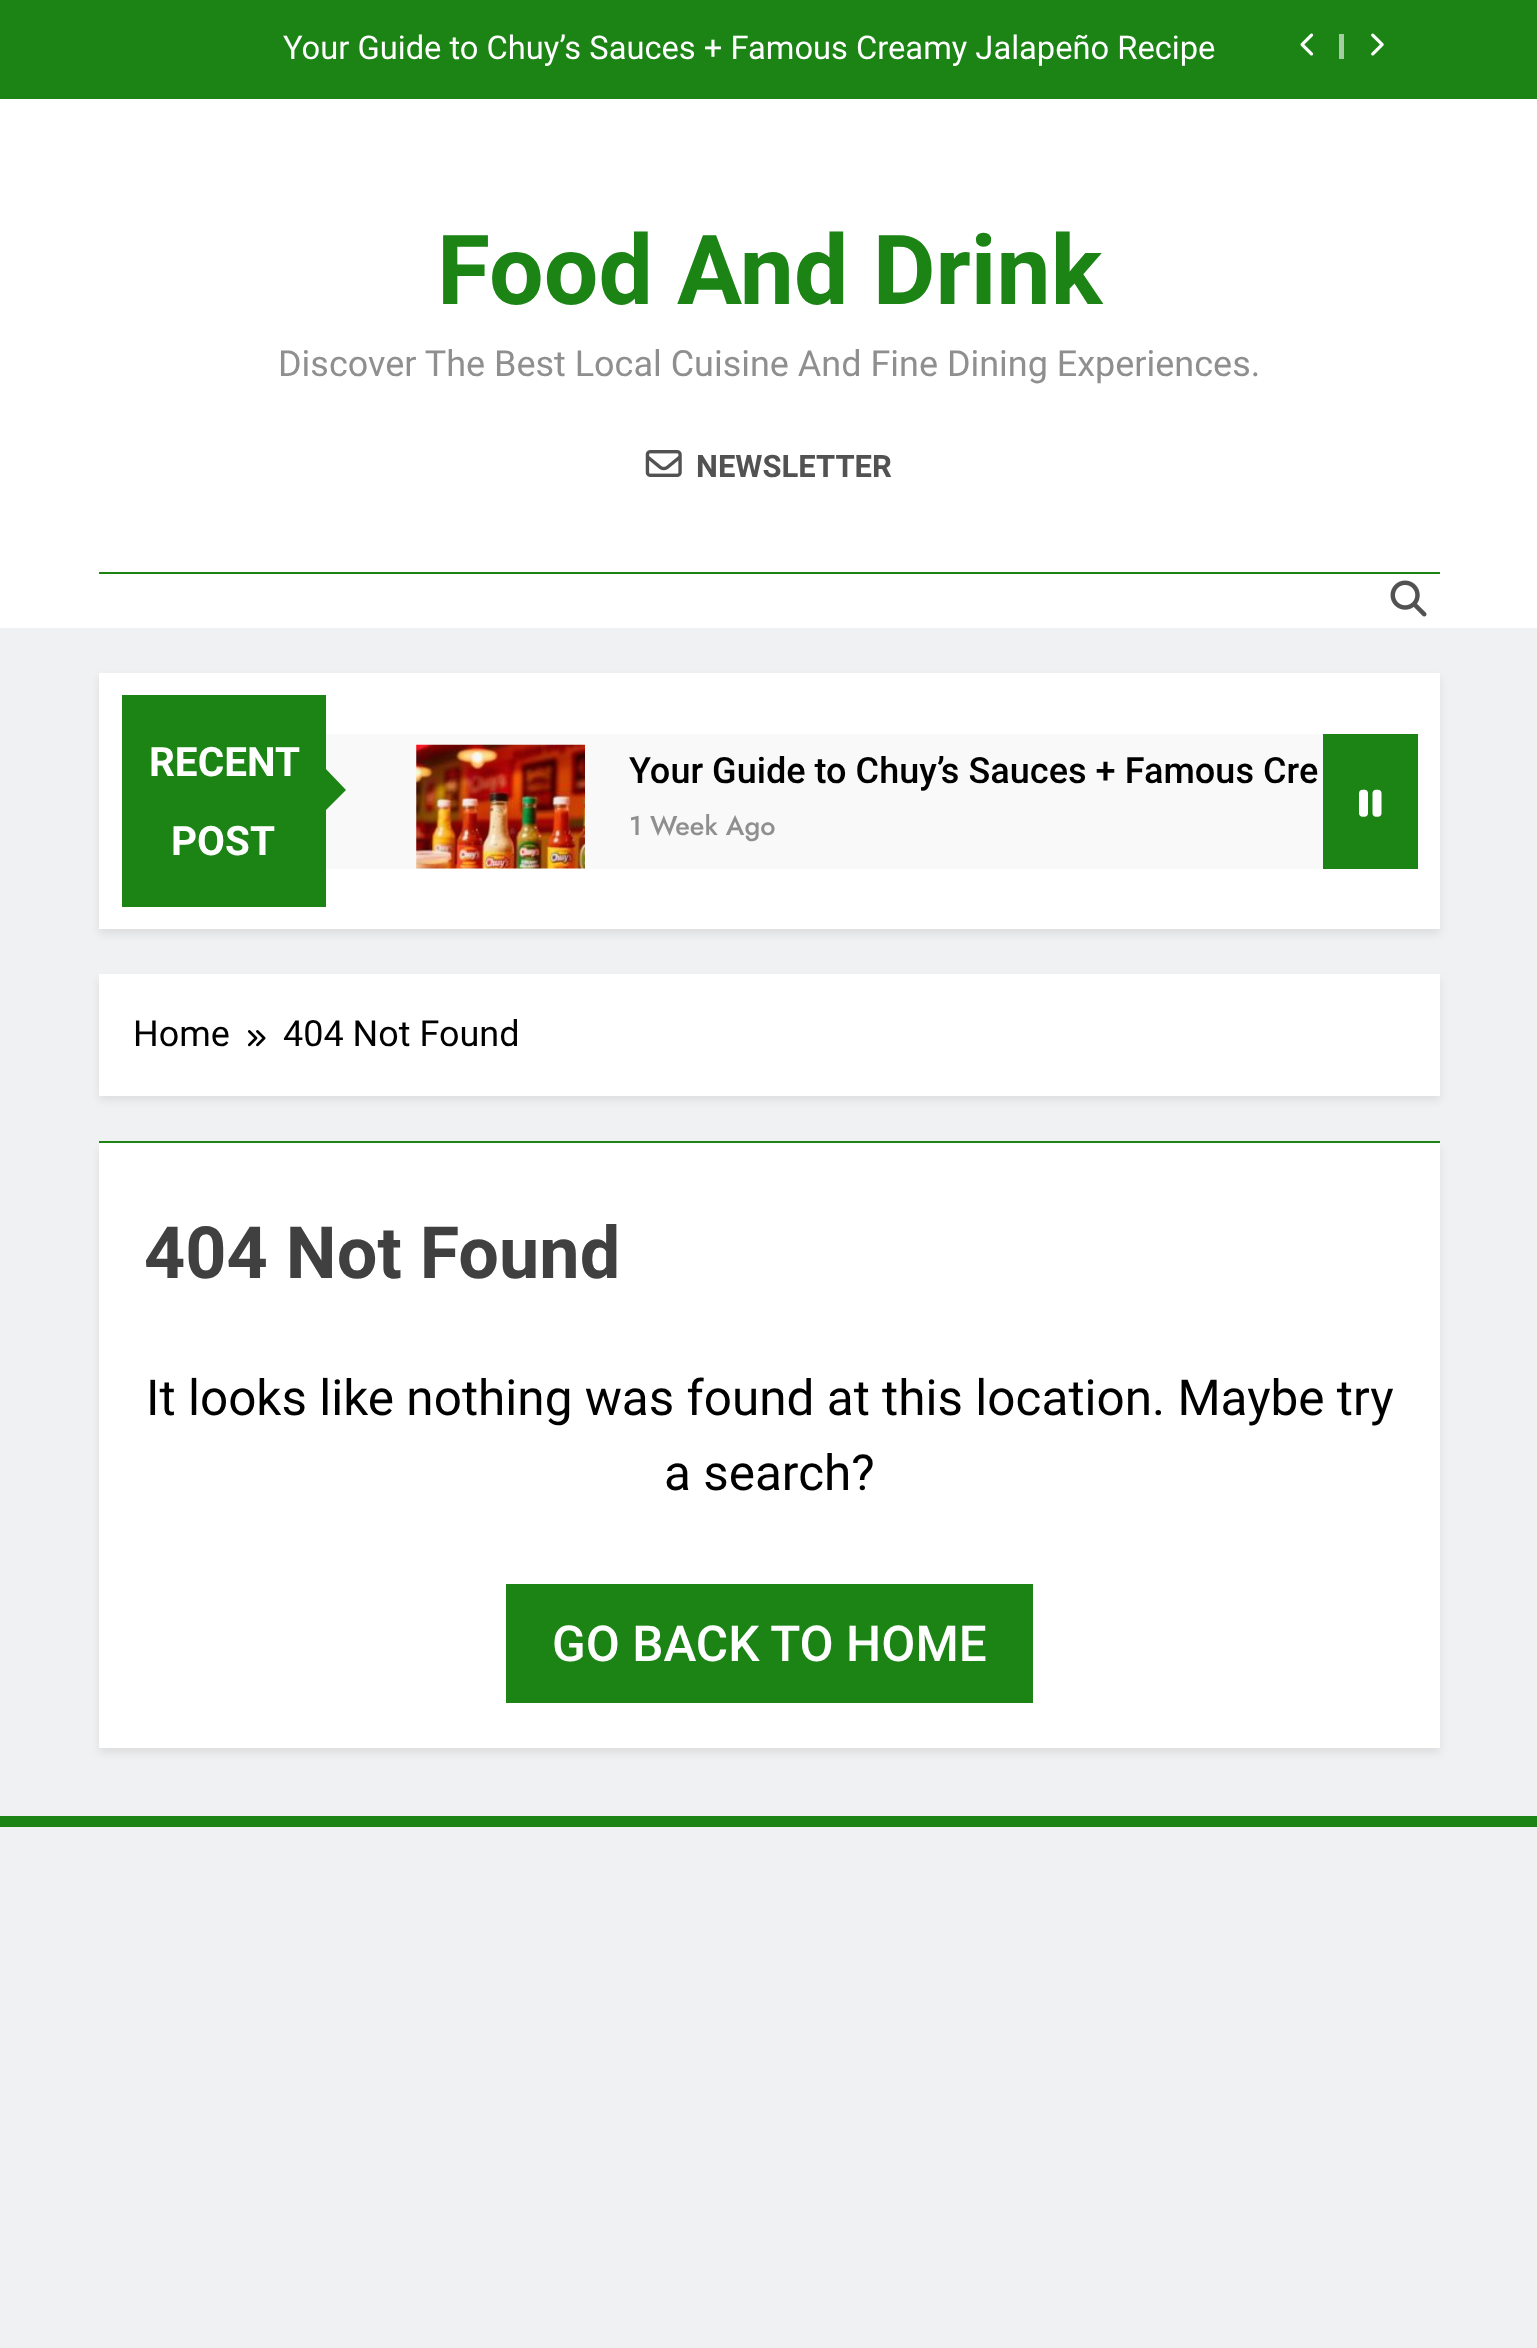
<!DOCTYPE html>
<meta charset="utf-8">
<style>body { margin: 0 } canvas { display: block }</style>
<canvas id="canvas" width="1537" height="2348"></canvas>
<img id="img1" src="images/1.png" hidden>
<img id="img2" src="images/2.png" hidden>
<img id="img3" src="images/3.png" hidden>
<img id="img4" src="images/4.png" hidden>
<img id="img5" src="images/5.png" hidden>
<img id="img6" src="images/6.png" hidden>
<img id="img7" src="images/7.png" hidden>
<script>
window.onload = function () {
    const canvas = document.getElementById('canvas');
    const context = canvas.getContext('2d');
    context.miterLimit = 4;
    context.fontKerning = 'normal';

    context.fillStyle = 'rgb(240, 241, 242)';
    context.fillRect(0, 0, 1537, 2348);
    context.fillStyle = 'rgb(27, 132, 21)';
    context.fillRect(0, 0, 1537, 99);
    context.drawImage(document.getElementById('img1'), 1300, 33, 14, 23);
    context.fillStyle = 'rgb(164, 206, 161)';
    context.fillRect(1339, 34, 5, 25);
    context.drawImage(document.getElementById('img2'), 1371, 33, 13, 23);
    context.fillStyle = 'rgb(255, 255, 255)';
    context.fillRect(0, 99, 1537, 529);
    context.drawImage(document.getElementById('img3'), 645, 450, 37, 27);
    context.fillStyle = 'rgb(27, 132, 21)';
    context.fillRect(99, 572, 1341, 2);
    context.drawImage(document.getElementById('img4'), 1390, 580, 37, 37);
    context.fillStyle = 'rgba(0, 0, 0, 0.08)';
    context.filter = 'blur(4.5px)';
    context.beginPath();
    context.rect(99, 677, 1341, 257);
    context.fill();
    context.filter = 'none';
    context.fillStyle = 'rgb(255, 255, 255)';
    context.fillRect(99, 673, 1341, 256);
    context.fillStyle = 'rgb(27, 132, 21)';
    context.fillRect(122, 695, 204, 212);
    context.fillStyle = 'rgb(249, 249, 249)';
    context.fillRect(326, 734, 997, 135);
    context.fillStyle = 'rgb(27, 132, 21)';
    context.beginPath();
    context.moveTo(324, 812);
    context.lineTo(324, 767);
    context.lineTo(346, 790);
    context.closePath();
    context.fill();
    context.drawImage(document.getElementById('img5'), 416, 744, 169, 125);
    context.fillRect(1323, 734, 95, 135);
    context.drawImage(document.getElementById('img6'), 1359, 789, 23, 28);
    context.fillStyle = 'rgba(0, 0, 0, 0.08)';
    context.filter = 'blur(4.5px)';
    context.beginPath();
    context.rect(99, 979, 1341, 121);
    context.fill();
    context.filter = 'none';
    context.fillStyle = 'rgb(255, 255, 255)';
    context.fillRect(99, 974, 1341, 122);
    context.drawImage(document.getElementById('img7'), 248, 1030, 18, 17);
    context.fillStyle = 'rgba(0, 0, 0, 0.08)';
    context.filter = 'blur(4.5px)';
    context.beginPath();
    context.rect(99, 1148, 1341, 605);
    context.fill();
    context.filter = 'none';
    context.fillStyle = 'rgb(255, 255, 255)';
    context.fillRect(99, 1143, 1341, 605);
    context.fillStyle = 'rgb(27, 132, 21)';
    context.fillRect(99, 1141, 1341, 2);
    context.fillRect(506, 1584, 527, 119);
    context.fillRect(0, 1816, 1537, 11);
    context.font = '32.7px Roboto';
    context.fillStyle = 'rgb(255, 255, 255)';
    context.fillText('Your Guide to Chuy’s Sauces + Famous Creamy Jalapeño Recipe', 283, 59);
    context.font = 'bold 96.75px Roboto';
    context.fillStyle = 'rgb(27, 132, 21)';
    context.fillText('Food And Drink', 437, 304);
    context.font = '36px Roboto';
    context.fillStyle = 'rgb(143, 143, 143)';
    context.fillText('Discover The Best Local Cuisine And Fine Dining Experiences.', 278, 376);
    context.font = 'bold 31px Roboto';
    context.fillStyle = 'rgb(82, 82, 82)';
    context.fillText('NEWSLETTER', 696, 477);
    context.font = 'bold 40.5px Roboto';
    context.fillStyle = 'rgb(255, 255, 255)';
    context.fillText('RECENT', 149, 776);
    context.fillText('POST', 171, 855);
    context.font = '500 36.1px Roboto';
    context.fillStyle = 'rgb(0, 0, 0)';
    context.fillText('Your Guide to Chuy’s Sauces + Famous Cre', 629, 783);
    context.font = '500 27px Jost';
    context.fillStyle = 'rgb(143, 143, 143)';
    context.fillText('1 Week Ago', 629, 835);
    context.font = '36px Roboto';
    context.fillStyle = 'rgb(0, 0, 0)';
    context.fillText('Home', 133, 1046);
    context.fillText('404 Not Found', 283, 1046);
    context.font = 'bold 72px Roboto';
    context.fillStyle = 'rgb(64, 64, 64)';
    context.fillText('404 Not Found', 144, 1278);
    context.font = '49.5px Roboto';
    context.fillStyle = 'rgb(0, 0, 0)';
    context.fillText('It looks like nothing was found at this location. Maybe try', 146, 1415);
    context.fillText('a search?', 664, 1490);
    context.font = '500 49.5px Roboto';
    context.fillStyle = 'rgb(255, 255, 255)';
    context.fillText('GO BACK TO HOME', 552, 1661);
};
</script>
